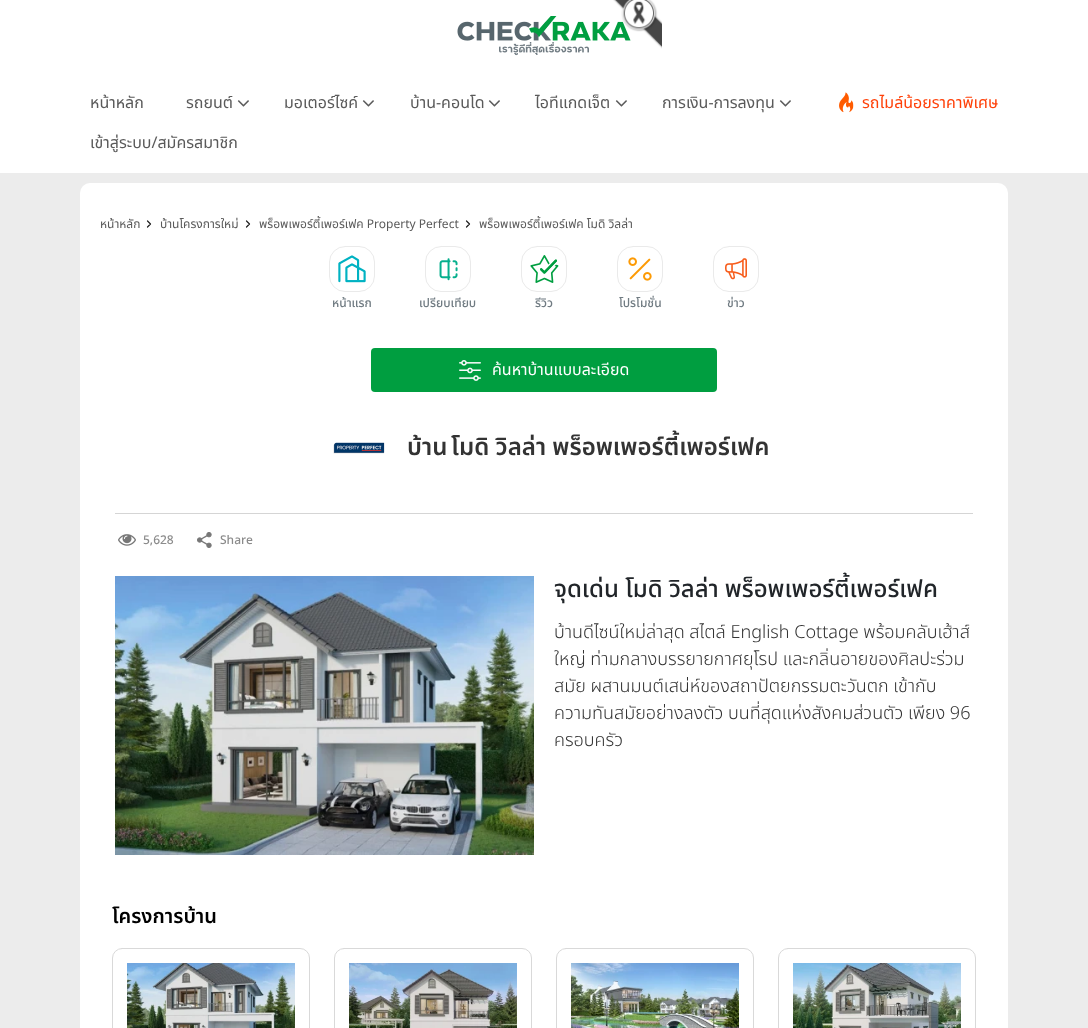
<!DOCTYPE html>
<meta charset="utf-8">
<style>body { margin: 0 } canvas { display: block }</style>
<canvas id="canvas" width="1088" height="1028"></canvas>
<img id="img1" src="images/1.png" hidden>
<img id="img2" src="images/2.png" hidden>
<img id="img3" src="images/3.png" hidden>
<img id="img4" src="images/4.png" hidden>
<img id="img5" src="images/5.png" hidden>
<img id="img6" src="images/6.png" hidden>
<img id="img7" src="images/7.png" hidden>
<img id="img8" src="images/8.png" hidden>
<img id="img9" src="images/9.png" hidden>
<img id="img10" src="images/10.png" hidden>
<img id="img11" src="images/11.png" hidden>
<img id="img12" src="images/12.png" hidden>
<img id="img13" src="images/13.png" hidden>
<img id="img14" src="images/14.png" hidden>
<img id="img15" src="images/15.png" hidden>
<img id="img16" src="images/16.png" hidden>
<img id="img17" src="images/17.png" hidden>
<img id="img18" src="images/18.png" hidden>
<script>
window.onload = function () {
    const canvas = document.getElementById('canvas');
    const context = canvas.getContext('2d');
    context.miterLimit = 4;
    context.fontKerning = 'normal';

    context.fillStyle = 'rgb(236, 236, 236)';
    context.fillRect(0, 0, 1088, 1028);
    context.fillStyle = 'rgb(255, 255, 255)';
    context.fillRect(0, 0, 1088, 173);
    context.drawImage(document.getElementById('img1'), 457, 16, 174, 40);
    context.drawImage(document.getElementById('img2'), 613, 0, 49, 49);
    context.drawImage(document.getElementById('img3'), 237, 100, 12, 7);
    context.drawImage(document.getElementById('img3'), 362, 100, 12, 7);
    context.drawImage(document.getElementById('img3'), 488, 100, 12, 7);
    context.drawImage(document.getElementById('img3'), 615, 100, 12, 7);
    context.drawImage(document.getElementById('img3'), 779, 100, 12, 7);
    context.drawImage(document.getElementById('img4'), 839, 92, 15, 21);
    context.beginPath();
    context.roundRect(80, 183, 928, 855, 10);
    context.fill();
    context.beginPath();
    context.moveTo(147.5, 227);
    context.lineTo(150.5, 224);
    context.lineTo(147.5, 221);
    context.strokeStyle = 'rgb(30, 30, 30)';
    context.lineWidth = 1.2;
    context.lineCap = 'round';
    context.lineJoin = 'round';
    context.stroke();
    context.beginPath();
    context.moveTo(246.5, 227);
    context.lineTo(249.5, 224);
    context.lineTo(246.5, 221);
    context.stroke();
    context.beginPath();
    context.moveTo(466.5, 227);
    context.lineTo(469.5, 224);
    context.lineTo(466.5, 221);
    context.stroke();
    context.beginPath();
    context.roundRect(329.5, 246.5, 45, 45, 15.5);
    context.strokeStyle = 'rgb(234, 234, 234)';
    context.lineWidth = 1;
    context.lineJoin = 'miter';
    context.stroke();
    context.drawImage(document.getElementById('img5'), 338, 255, 28, 28);
    context.beginPath();
    context.roundRect(425.5, 246.5, 45, 45, 15.5);
    context.stroke();
    context.drawImage(document.getElementById('img6'), 439, 258, 19, 23);
    context.beginPath();
    context.roundRect(521.5, 246.5, 45, 45, 15.5);
    context.stroke();
    context.drawImage(document.getElementById('img7'), 530, 255, 29, 28);
    context.beginPath();
    context.roundRect(617.5, 246.5, 45, 45, 15.5);
    context.stroke();
    context.drawImage(document.getElementById('img8'), 628, 257, 24, 24);
    context.beginPath();
    context.roundRect(713.5, 246.5, 45, 45, 15.5);
    context.stroke();
    context.drawImage(document.getElementById('img9'), 725, 258, 22, 22);
    context.fillStyle = 'rgb(0, 158, 64)';
    context.beginPath();
    context.roundRect(371, 348, 346, 44, 4);
    context.fill();
    context.drawImage(document.getElementById('img10'), 459, 360, 22, 21);
    context.drawImage(document.getElementById('img11'), 333, 442, 52, 12);
    context.fillStyle = 'rgb(213, 213, 213)';
    context.fillRect(115, 513, 858, 1);
    context.drawImage(document.getElementById('img12'), 118, 534, 18, 12);
    context.drawImage(document.getElementById('img13'), 197, 532, 15, 16);
    context.drawImage(document.getElementById('img14'), 115, 576, 419, 279);
    context.beginPath();
    context.roundRect(112.5, 948.5, 197, 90, 9.5);
    context.strokeStyle = 'rgb(217, 217, 217)';
    context.stroke();
    context.drawImage(document.getElementById('img15'), 127, 963, 168, 65);
    context.beginPath();
    context.roundRect(334.5, 948.5, 197, 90, 9.5);
    context.stroke();
    context.drawImage(document.getElementById('img16'), 349, 963, 168, 65);
    context.beginPath();
    context.roundRect(556.5, 948.5, 197, 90, 9.5);
    context.stroke();
    context.drawImage(document.getElementById('img17'), 571, 963, 168, 65);
    context.beginPath();
    context.roundRect(778.5, 948.5, 197, 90, 9.5);
    context.stroke();
    context.drawImage(document.getElementById('img18'), 793, 963, 168, 65);
    context.font = '16px Noto Sans Thai';
    context.fillStyle = 'rgb(90, 90, 90)';
    context.fillText('หน้าหลัก', 90, 108);
    context.fillText('รถยนต์', 186, 108);
    context.fillText('มอเตอร์ไซค์', 284, 108);
    context.fillText('บ้าน-คอนโด', 410, 108);
    context.fillText('ไอทีแกดเจ็ต', 535, 108);
    context.fillText('การเงิน-การลงทุน', 662, 108);
    context.fillStyle = 'rgb(255, 65, 9)';
    context.fillText('รถไมล์น้อยราคาพิเศษ', 862, 108);
    context.fillStyle = 'rgb(90, 90, 90)';
    context.fillText('เข้าสู่ระบบ/สมัครสมาชิก', 90, 148);
    context.font = '12px Noto Sans Thai';
    context.fillText('หน้าหลัก', 100, 228);
    context.fillText('บ้านโครงการใหม่', 160, 228);
    context.fillText('พร็อพเพอร์ตี้เพอร์เฟค Property Perfect', 259, 228);
    context.fillText('พร็อพเพอร์ตี้เพอร์เฟค โมดิ วิลล่า', 479, 228);
    context.font = '500 12px Noto Sans Thai';
    context.fillStyle = 'rgb(112, 123, 130)';
    context.fillText('หน้าแรก', 332, 307);
    context.fillText('เปรียบเทียบ', 419, 307);
    context.fillText('รีวิว', 535, 307);
    context.fillText('โปรโมชั่น', 619, 307);
    context.fillText('ข่าว', 727, 307);
    context.font = '16px Noto Sans Thai';
    context.fillStyle = 'rgb(255, 255, 255)';
    context.fillText('ค้นหาบ้านแบบละเอียด', 492, 375);
    context.font = '600 24px Noto Sans Thai';
    context.fillStyle = 'rgb(51, 51, 51)';
    context.fillText('บ้าน', 407, 455);
    context.fillText('โมดิ วิลล่า พร็อพเพอร์ตี้เพอร์เฟค', 451, 455);
    context.font = '500 12px Noto Sans Thai';
    context.fillStyle = 'rgb(139, 139, 139)';
    context.fillText('5,628', 143, 544);
    context.fillText('Share', 220, 544);
    context.font = '500 24px Noto Sans Thai';
    context.fillStyle = 'rgb(33, 37, 41)';
    context.fillText('จุดเด่น โมดิ วิลล่า พร็อพเพอร์ตี้เพอร์เฟค', 554, 597);
    context.save();
    context.beginPath();
    context.rect(554, 619, 419, 135);
    context.clip();
    context.font = '300 18px Noto Sans Thai';
    context.fillStyle = 'rgb(51, 51, 51)';
    context.fillText('บ้านดีไซน์ใหม่ล่าสุด สไตล์ English Cottage พร้อมคลับเฮ้าส์', 554, 638);
    context.restore();
    context.font = '300 18px Noto Sans Thai';
    context.fillStyle = 'rgb(51, 51, 51)';
    context.fillText('ใหญ่ ท่ามกลางบรรยายกาศยุโรป และกลิ่นอายของศิลปะร่วม', 554, 665);
    context.fillText('สมัย ผสานมนต์เสน่ห์ของสถาปัตยกรรมตะวันตก เข้ากับ', 554, 692);
    context.fillText('ความทันสมัยอย่างลงตัว บนที่สุดแห่งสังคมส่วนตัว เพียง 96', 554, 719);
    context.fillText('ครอบครัว', 554, 746);
    context.font = '600 20px Noto Sans Thai';
    context.fillStyle = 'rgb(0, 0, 0)';
    context.fillText('โครงการบ้าน', 112, 923);
};
</script>
